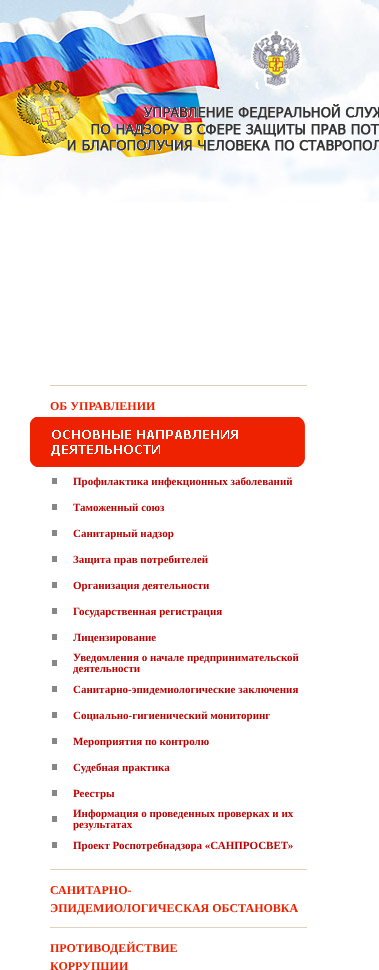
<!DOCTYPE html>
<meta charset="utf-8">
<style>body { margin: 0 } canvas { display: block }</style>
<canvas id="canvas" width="379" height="970"></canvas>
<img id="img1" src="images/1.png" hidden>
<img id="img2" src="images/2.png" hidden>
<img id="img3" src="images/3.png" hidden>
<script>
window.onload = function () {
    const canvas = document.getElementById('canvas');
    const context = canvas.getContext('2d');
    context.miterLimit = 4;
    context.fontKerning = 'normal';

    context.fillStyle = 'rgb(255, 255, 255)';
    context.fillRect(0, 0, 379, 970);
    context.drawImage(document.getElementById('img1'), 0, 0, 379, 202);
    context.drawImage(document.getElementById('img2'), 67, 26, 312, 125);
    context.fillStyle = 'rgb(226, 209, 186)';
    context.fillRect(50, 385, 257, 1);
    context.drawImage(document.getElementById('img3'), 30, 417, 275, 50);
    context.fillStyle = 'rgb(137, 134, 134)';
    context.fillRect(52, 478, 5, 6);
    context.fillRect(52, 504, 5, 6);
    context.fillRect(52, 530, 5, 6);
    context.fillRect(52, 556, 5, 6);
    context.fillRect(52, 582, 5, 6);
    context.fillRect(52, 608, 5, 6);
    context.fillRect(52, 634, 5, 6);
    context.fillRect(52, 660, 5, 6);
    context.fillRect(52, 686, 5, 6);
    context.fillRect(52, 712, 5, 6);
    context.fillRect(52, 738, 5, 6);
    context.fillRect(52, 764, 5, 6);
    context.fillRect(52, 790, 5, 6);
    context.fillRect(52, 816, 5, 6);
    context.fillRect(52, 842, 5, 6);
    context.fillStyle = 'rgb(226, 209, 186)';
    context.fillRect(50, 869, 257, 1);
    context.fillRect(50, 927, 257, 1);
    context.font = 'bold 12px Liberation Serif';
    context.fillStyle = 'rgb(238, 34, 0)';
    context.fillText('ОБ УПРАВЛЕНИИ', 50, 410);
    context.font = 'bold 11px Liberation Serif';
    context.fillStyle = 'rgb(189, 0, 1)';
    context.fillText('Профилактика инфекционных заболеваний', 73, 485);
    context.fillText('Таможенный союз', 73, 511);
    context.fillText('Санитарный надзор', 73, 537);
    context.fillText('Защита прав потребителей', 73, 563);
    context.fillText('Организация деятельности', 73, 589);
    context.fillText('Государственная регистрация', 73, 615);
    context.fillText('Лицензирование', 73, 641);
    context.fillText('Уведомления о начале предпринимательской', 73, 661);
    context.fillText('деятельности', 73, 672);
    context.fillText('Санитарно-эпидемиологические заключения', 73, 693);
    context.fillText('Социально-гигиенический мониторинг', 73, 719);
    context.fillText('Мероприятия по контролю', 73, 745);
    context.fillText('Судебная практика', 73, 771);
    context.fillText('Реестры', 73, 797);
    context.fillText('Информация о проведенных проверках и их', 73, 817);
    context.fillText('результатах', 73, 828);
    context.fillText('Проект Роспотребнадзора «САНПРОСВЕТ»', 73, 849);
    context.font = 'bold 12px Liberation Serif';
    context.fillStyle = 'rgb(238, 34, 0)';
    context.fillText('САНИТАРНО-', 50, 894);
    context.fillText('ЭПИДЕМИОЛОГИЧЕСКАЯ ОБСТАНОВКА', 50, 912);
    context.fillText('ПРОТИВОДЕЙСТВИЕ', 50, 952);
    context.fillText('КОРРУПЦИИ', 50, 970);
};
</script>
